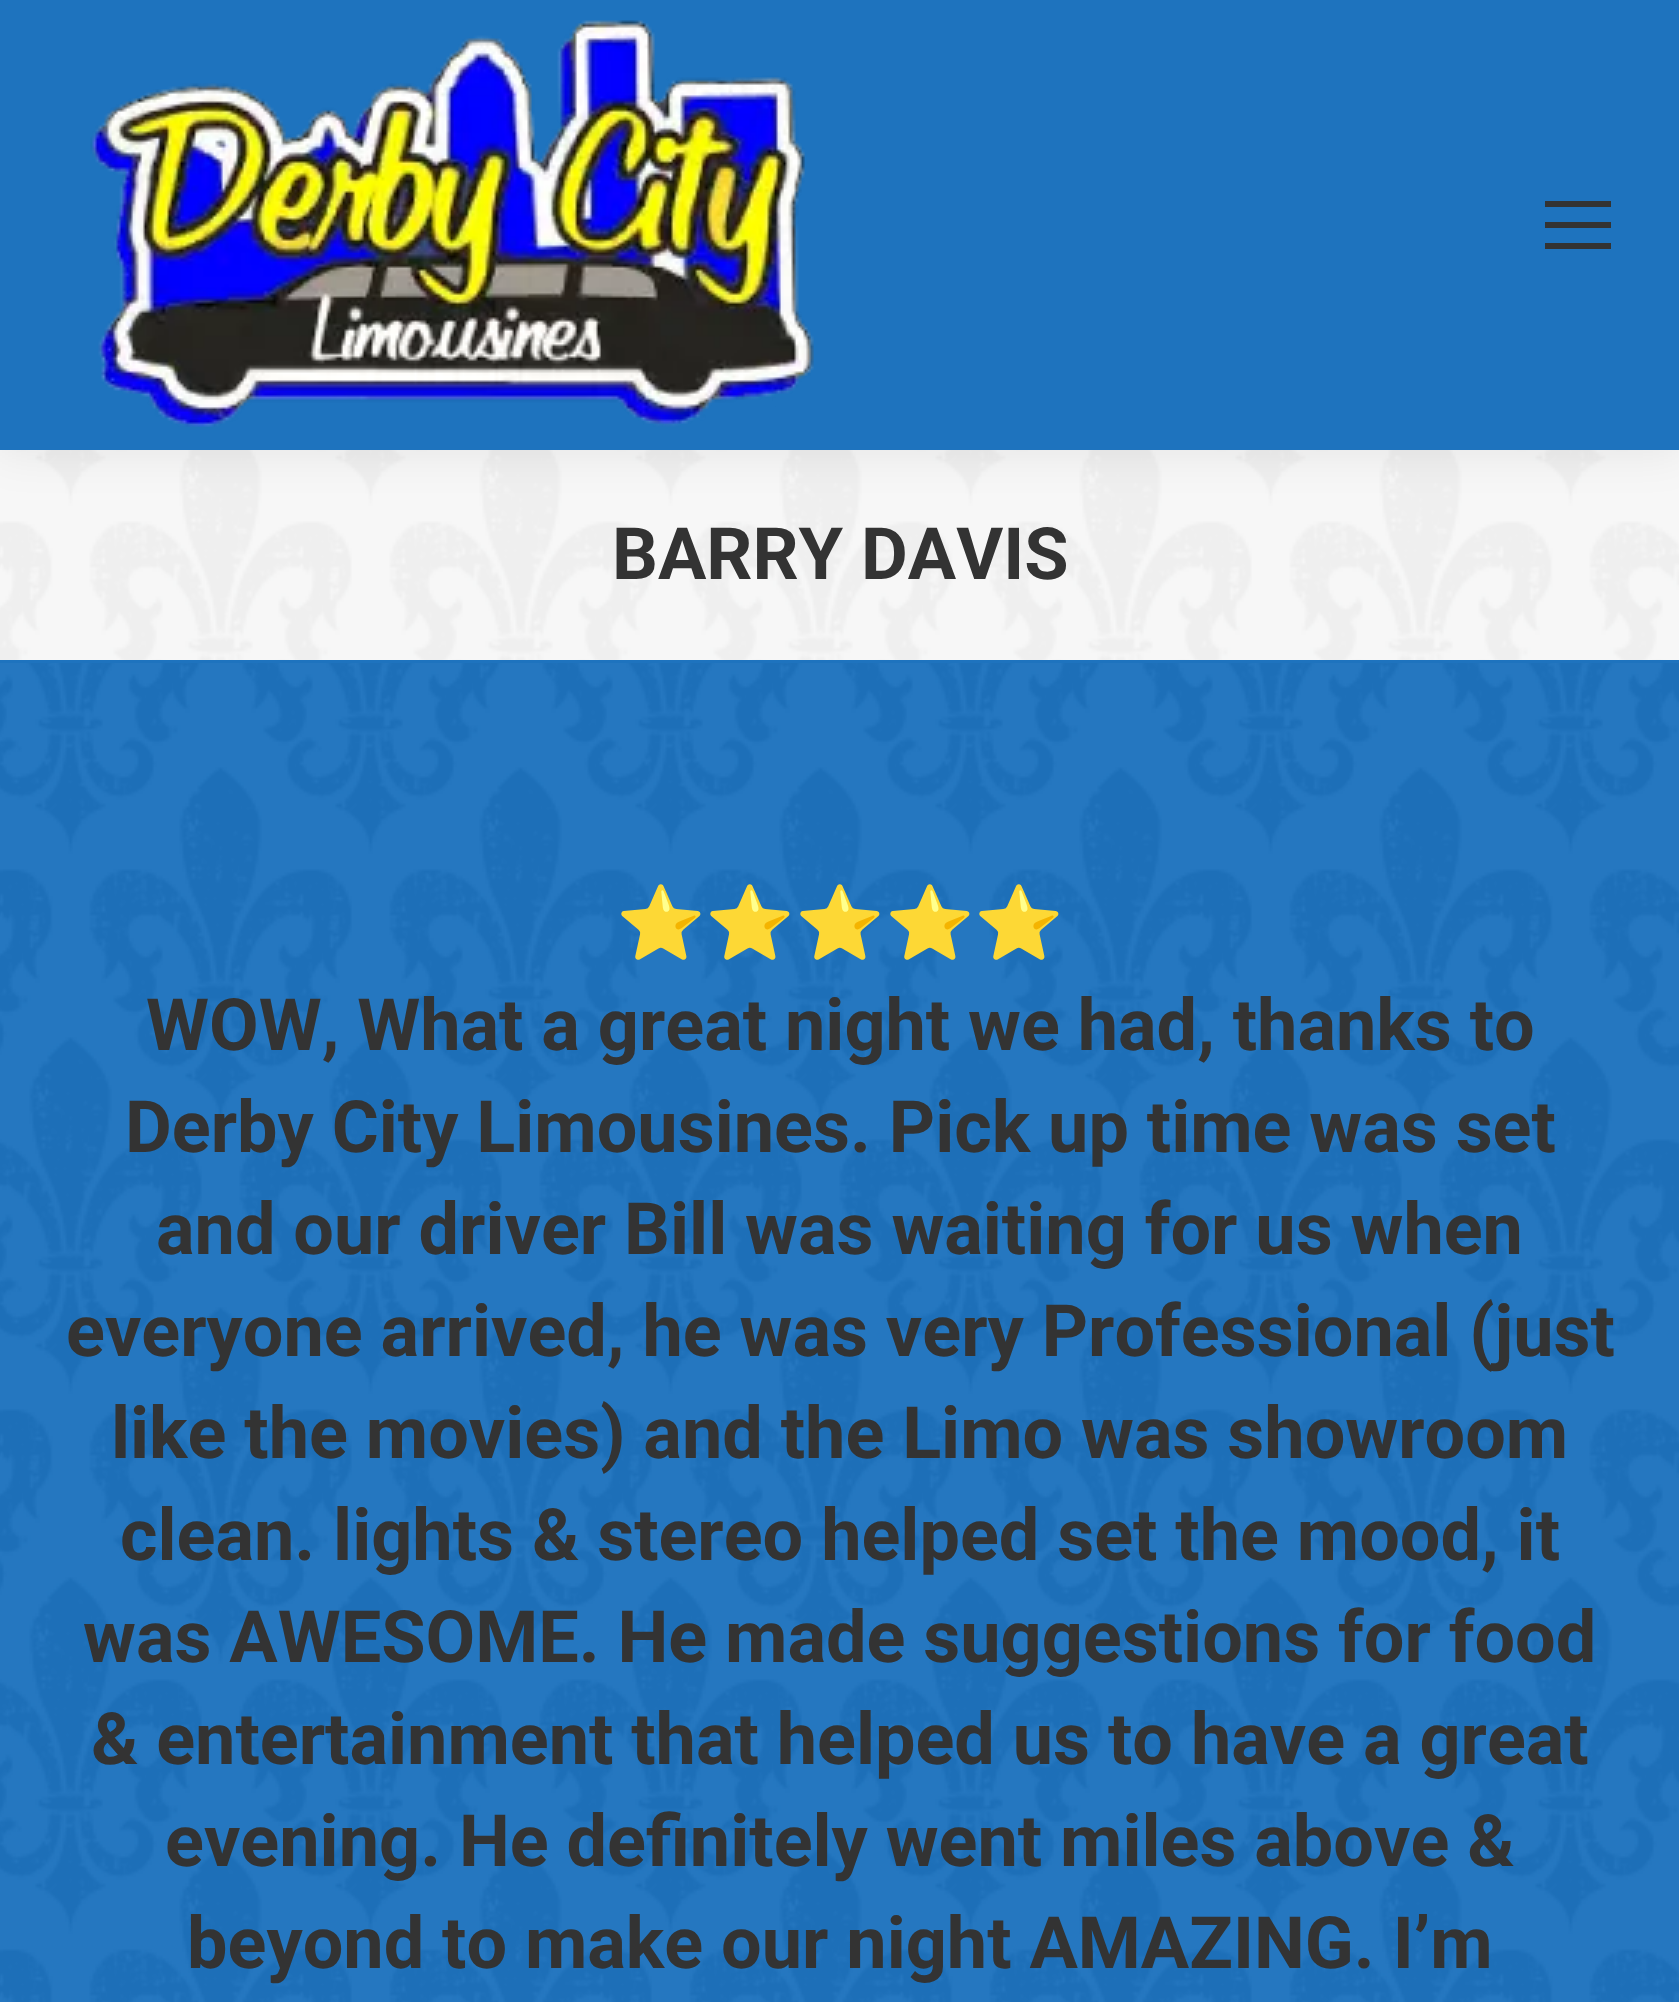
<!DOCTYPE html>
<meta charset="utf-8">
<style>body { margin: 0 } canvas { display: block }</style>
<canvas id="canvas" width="1679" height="2002"></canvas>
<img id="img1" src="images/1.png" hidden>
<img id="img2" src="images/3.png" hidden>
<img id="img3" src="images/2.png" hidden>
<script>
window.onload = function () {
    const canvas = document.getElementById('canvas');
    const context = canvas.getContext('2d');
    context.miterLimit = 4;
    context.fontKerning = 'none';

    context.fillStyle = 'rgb(30, 115, 190)';
    context.fillRect(0, 0, 1679, 2002);
    context.drawImage(document.getElementById('img1'), 0, 663, 1679, 1339);
    context.fillStyle = 'rgb(247, 247, 247)';
    context.fillRect(0, 450, 1679, 210);
    context.drawImage(document.getElementById('img2'), 0, 450, 1679, 210);
    context.fillStyle = 'rgba(0, 0, 0, 0.07)';
    context.filter = 'blur(22.5px)';
    context.beginPath();
    context.rect(-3, -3, 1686, 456);
    context.fill();
    context.filter = 'none';
    context.fillStyle = 'rgb(30, 115, 190)';
    context.fillRect(0, 0, 1679, 450);
    context.drawImage(document.getElementById('img3'), 90, 20, 724, 407);
    context.fillStyle = 'rgb(51, 51, 51)';
    context.fillRect(1545, 201, 66, 6);
    context.fillRect(1545, 222, 66, 6);
    context.fillRect(1545, 243, 66, 6);
    context.font = 'bold 72px Roboto';
    context.fillText('BARRY DAVIS', 612, 579);
    context.font = 'bold 72px Noto Color Emoji';
    context.fillText('⭐⭐⭐⭐⭐', 616, 948);
    context.font = 'bold 72px Roboto';
    context.fillText('WOW, What a great night we had, thanks to', 146, 1050);
    context.fillText('Derby City Limousines. Pick up time was set', 125, 1152);
    context.fillText('and our driver Bill was waiting for us when', 156, 1254);
    context.fillText('everyone arrived, he was very Professional (just', 66, 1356);
    context.fillText('like the movies) and the Limo was showroom', 111, 1458);
    context.fillText('clean. lights & stereo helped set the mood, it', 120, 1560);
    context.fillText('was AWESOME. He made suggestions for food', 83, 1662);
    context.fillText('& entertainment that helped us to have a great', 91, 1764);
    context.fillText('evening. He definitely went miles above &', 165, 1866);
    context.fillText('beyond to make our night AMAZING. I’m', 187, 1968);
};
</script>
